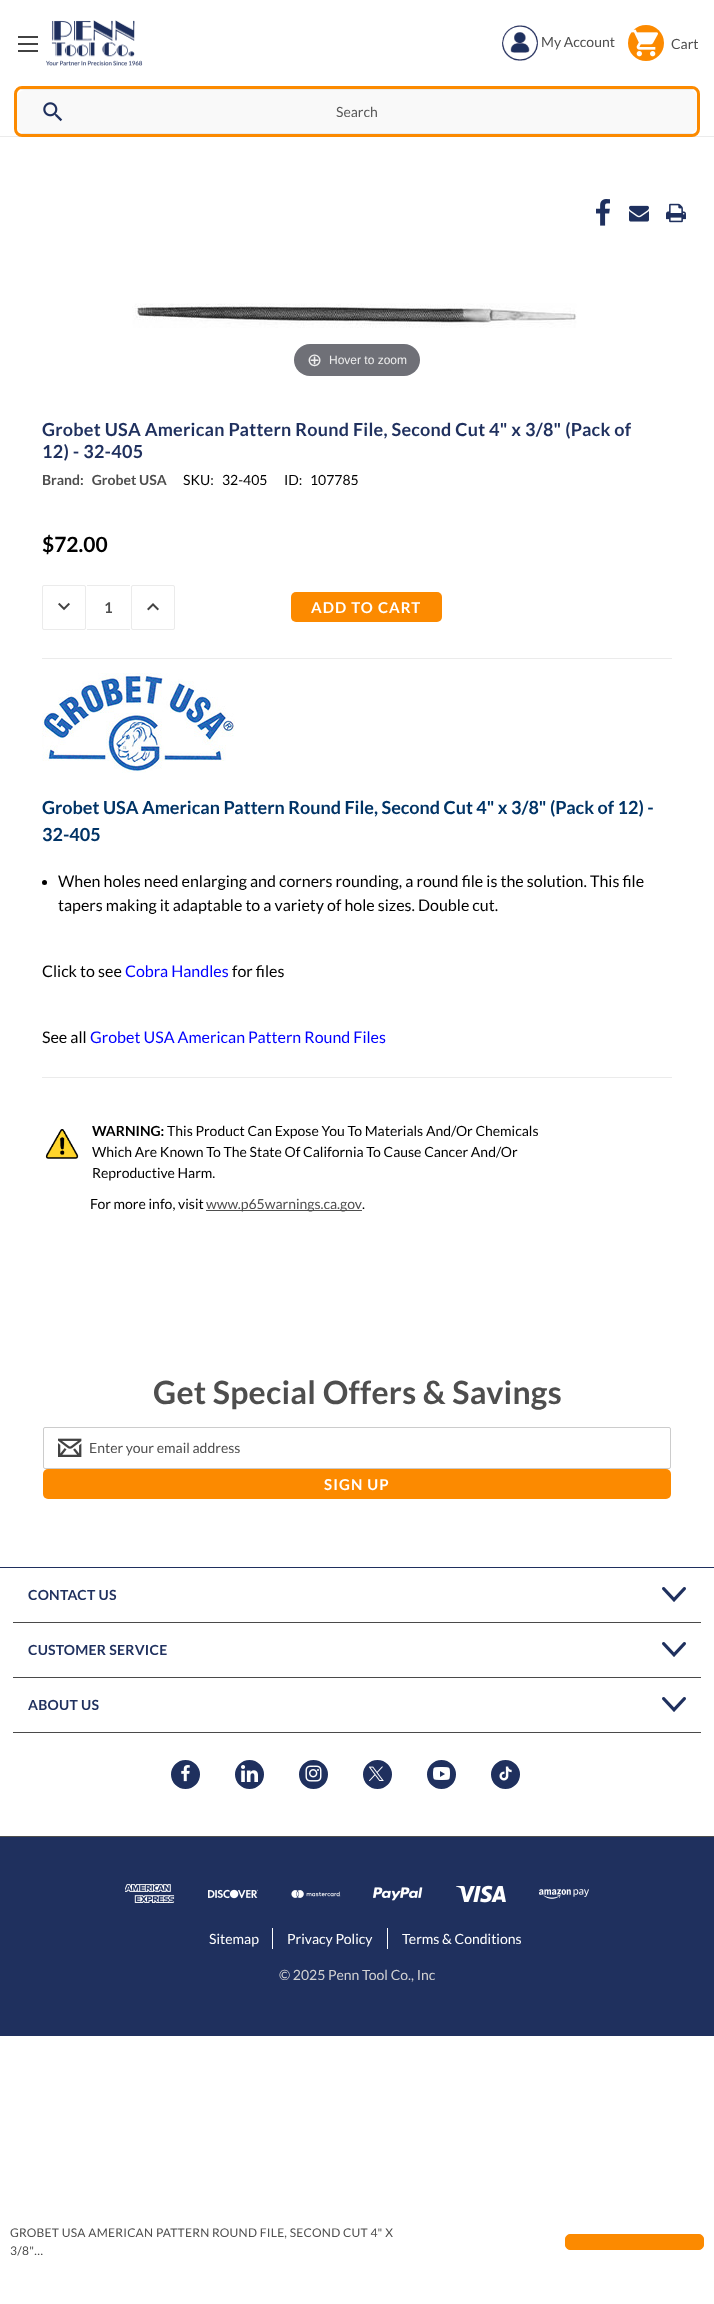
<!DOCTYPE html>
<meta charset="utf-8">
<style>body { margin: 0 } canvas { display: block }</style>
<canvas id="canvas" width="714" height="2304"></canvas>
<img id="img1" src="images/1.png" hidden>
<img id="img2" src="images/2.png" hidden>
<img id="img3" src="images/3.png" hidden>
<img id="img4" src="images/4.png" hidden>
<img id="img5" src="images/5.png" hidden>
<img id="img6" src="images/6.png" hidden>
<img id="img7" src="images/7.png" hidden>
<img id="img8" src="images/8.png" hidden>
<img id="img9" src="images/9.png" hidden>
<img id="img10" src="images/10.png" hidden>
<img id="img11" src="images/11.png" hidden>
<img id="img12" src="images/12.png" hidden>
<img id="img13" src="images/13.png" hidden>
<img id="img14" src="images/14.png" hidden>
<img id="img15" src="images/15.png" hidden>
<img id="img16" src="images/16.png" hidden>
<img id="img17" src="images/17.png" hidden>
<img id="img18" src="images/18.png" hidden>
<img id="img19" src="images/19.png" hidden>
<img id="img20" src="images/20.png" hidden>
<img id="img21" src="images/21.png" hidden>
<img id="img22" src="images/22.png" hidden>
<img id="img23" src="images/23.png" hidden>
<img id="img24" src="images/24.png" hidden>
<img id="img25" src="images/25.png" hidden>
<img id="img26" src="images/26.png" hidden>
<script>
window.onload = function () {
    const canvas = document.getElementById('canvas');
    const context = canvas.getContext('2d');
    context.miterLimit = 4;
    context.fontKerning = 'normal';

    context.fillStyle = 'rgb(255, 255, 255)';
    context.fillRect(0, 0, 714, 2304);
    context.fillStyle = 'rgb(235, 235, 235)';
    context.fillRect(0, 136, 714, 1);
    context.fillStyle = 'rgb(66, 66, 66)';
    context.fillRect(18, 43, 20, 2);
    context.fillRect(18, 36, 20, 2);
    context.fillRect(18, 50, 20, 2);
    context.drawImage(document.getElementById('img1'), 46, 20, 97, 46);
    context.drawImage(document.getElementById('img2'), 502, 25, 36, 36);
    context.fillStyle = 'rgb(252, 138, 0)';
    context.beginPath();
    context.arc(646, 43, 18, 0, 2 * Math.PI);
    context.fill();
    context.drawImage(document.getElementById('img3'), 631, 29, 27, 28);
    context.beginPath();
    context.roundRect(15.5, 87.5, 683, 48, 6.5);
    context.strokeStyle = 'rgb(252, 138, 0)';
    context.lineWidth = 3;
    context.stroke();
    context.fillStyle = 'rgb(249, 249, 249)';
    context.beginPath();
    context.moveTo(25, 90);
    context.lineTo(689, 90);
    context.bezierCurveTo(693, 90, 697, 93, 697, 97);
    context.lineTo(697, 126);
    context.bezierCurveTo(697, 130, 693, 133, 689, 133);
    context.lineTo(25, 133);
    context.bezierCurveTo(21, 133, 17, 130, 17, 126);
    context.lineTo(17, 97);
    context.bezierCurveTo(17, 93, 21, 90, 25, 90);
    context.closePath();
    context.fill();
    context.drawImage(document.getElementById('img4'), 43, 102, 20, 20);
    context.fillStyle = 'rgb(235, 235, 235)';
    context.fillRect(21, 89, 672, 1);
    context.fillRect(21, 133, 672, 1);
    context.drawImage(document.getElementById('img5'), 132, 303, 445, 25);
    context.fillStyle = 'rgb(111, 112, 119)';
    context.beginPath();
    context.roundRect(294, 344, 126, 32, 16);
    context.fill();
    context.drawImage(document.getElementById('img6'), 596, 199, 14, 27);
    context.drawImage(document.getElementById('img7'), 629, 205, 20, 17);
    context.drawImage(document.getElementById('img8'), 666, 203, 20, 20);
    context.beginPath();
    context.roundRect(42.5, 585.5, 43, 44, 1.5);
    context.strokeStyle = 'rgb(235, 235, 235)';
    context.lineWidth = 1;
    context.stroke();
    context.drawImage(document.getElementById('img9'), 58, 602, 12, 9);
    context.fillStyle = 'rgb(235, 235, 235)';
    context.fillRect(87, 585, 43, 1);
    context.fillRect(87, 629, 43, 1);
    context.beginPath();
    context.roundRect(131.5, 585.5, 43, 44, 1.5);
    context.stroke();
    context.drawImage(document.getElementById('img10'), 147, 603, 12, 8);
    context.fillStyle = 'rgb(252, 138, 0)';
    context.beginPath();
    context.roundRect(291, 592, 151, 30, 5);
    context.fill();
    context.fillStyle = 'rgb(235, 235, 235)';
    context.fillRect(42, 658, 630, 1);
    context.drawImage(document.getElementById('img11'), 42, 673, 193, 100);
    context.fillStyle = 'rgb(0, 0, 0)';
    context.beginPath();
    context.arc(44.5, 882.5, 2.5, 0, 2 * Math.PI);
    context.fill();
    context.fillStyle = 'rgb(235, 235, 235)';
    context.fillRect(42, 1077, 630, 1);
    context.drawImage(document.getElementById('img12'), 45, 1129, 34, 30);
    context.fillStyle = 'rgb(78, 78, 78)';
    context.fillRect(206, 1210, 156, 1);
    context.fillStyle = 'rgb(252, 138, 0)';
    context.beginPath();
    context.roundRect(565.5, 2234.5, 138, 15, 4.5);
    context.fill();
    context.strokeStyle = 'rgb(252, 138, 0)';
    context.stroke();
    context.beginPath();
    context.roundRect(43.5, 1427.5, 627, 41, 1.5);
    context.strokeStyle = 'rgb(204, 204, 204)';
    context.stroke();
    context.drawImage(document.getElementById('img13'), 58, 1438, 24, 19);
    context.beginPath();
    context.roundRect(43, 1469, 628, 30, 5);
    context.fill();
    context.fillStyle = 'rgb(31, 48, 94)';
    context.fillRect(0, 1567, 714, 1);
    context.fillStyle = 'rgb(74, 74, 74)';
    context.fillRect(13, 1622, 688, 1);
    context.drawImage(document.getElementById('img14'), 662, 1587, 24, 15);
    context.fillRect(13, 1677, 688, 1);
    context.drawImage(document.getElementById('img14'), 662, 1642, 24, 15);
    context.fillRect(13, 1732, 688, 1);
    context.drawImage(document.getElementById('img14'), 662, 1697, 24, 15);
    context.fillStyle = 'rgb(31, 48, 94)';
    context.beginPath();
    context.arc(185.5, 1774.5, 15.5, 0, 2 * Math.PI);
    context.fill();
    context.strokeStyle = 'rgb(255, 255, 255)';
    context.lineWidth = 2;
    context.stroke();
    context.drawImage(document.getElementById('img15'), 181, 1765, 9, 17);
    context.beginPath();
    context.arc(249.5, 1774.5, 15.5, 0, 2 * Math.PI);
    context.fill();
    context.stroke();
    context.drawImage(document.getElementById('img16'), 241, 1765, 17, 17);
    context.beginPath();
    context.arc(313.5, 1774.5, 15.5, 0, 2 * Math.PI);
    context.fill();
    context.stroke();
    context.drawImage(document.getElementById('img17'), 305, 1765, 17, 17);
    context.beginPath();
    context.arc(377.5, 1774.5, 15.5, 0, 2 * Math.PI);
    context.fill();
    context.stroke();
    context.drawImage(document.getElementById('img18'), 369, 1766, 15, 15);
    context.beginPath();
    context.arc(441.5, 1774.5, 15.5, 0, 2 * Math.PI);
    context.fill();
    context.stroke();
    context.drawImage(document.getElementById('img19'), 433, 1767, 17, 13);
    context.beginPath();
    context.arc(505.5, 1774.5, 15.5, 0, 2 * Math.PI);
    context.fill();
    context.stroke();
    context.drawImage(document.getElementById('img20'), 499, 1766, 13, 15);
    context.fillRect(0, 1837, 714, 199);
    context.fillStyle = 'rgb(78, 78, 78)';
    context.fillRect(0, 1836, 714, 1);
    context.drawImage(document.getElementById('img21'), 125, 1884, 50, 19);
    context.drawImage(document.getElementById('img22'), 208, 1889, 50, 10);
    context.drawImage(document.getElementById('img23'), 291, 1890, 50, 8);
    context.drawImage(document.getElementById('img24'), 373, 1887, 50, 14);
    context.drawImage(document.getElementById('img25'), 456, 1885, 50, 18);
    context.drawImage(document.getElementById('img26'), 539, 1889, 50, 10);
    context.fillStyle = 'rgb(255, 255, 255)';
    context.fillRect(272, 1928, 1, 21);
    context.fillRect(387, 1928, 1, 21);
    context.font = '14px Lato';
    context.fillStyle = 'rgb(78, 78, 78)';
    context.fillText('My Account', 541, 47);
    context.fillText('Cart', 671, 49);
    context.fillStyle = 'rgb(89, 89, 89)';
    context.fillText('Search', 336, 117);
    context.font = '18px DejaVu Sans';
    context.fillStyle = 'rgb(238, 238, 238)';
    context.fillText('⊕', 307, 366);
    context.font = '12px Liberation Sans';
    context.fillText('Hover to zoom', 329, 364);
    context.letterSpacing = '0.25px';
    context.font = 'bold 18px Lato';
    context.fillStyle = 'rgb(31, 48, 94)';
    context.fillText('Grobet USA American Pattern Round File, Second Cut 4" x 3/8" (Pack of', 42, 436);
    context.fillText('12) - 32-405', 42, 458);
    context.letterSpacing = '0px';
    context.font = 'bold 14px Lato';
    context.fillStyle = 'rgb(78, 78, 78)';
    context.fillText('Brand:   Grobet USA', 42, 485);
    context.font = '14px Lato';
    context.fillStyle = 'rgb(0, 0, 0)';
    context.fillText('SKU:', 183, 485);
    context.fillText('32-405', 222, 485);
    context.fillText('ID:', 284, 485);
    context.fillText('107785', 310, 485);
    context.font = 'bold 21px Lato';
    context.fillText('$72.00', 42, 552);
    context.font = 'bold 15px Lato';
    context.fillStyle = 'rgb(78, 78, 78)';
    context.fillText('1', 104, 613);
    context.letterSpacing = '1.1px';
    context.fillStyle = 'rgb(255, 255, 255)';
    context.fillText('ADD TO CART', 311, 613);
    context.letterSpacing = '0px';
    context.font = 'bold 18px Lato';
    context.fillStyle = 'rgb(0, 51, 102)';
    context.fillText('Grobet USA American Pattern Round File, Second Cut 4" x 3/8" (Pack of 12) -', 42, 814);
    context.fillText('32-405', 42, 841);
    context.font = '16px Lato';
    context.fillStyle = 'rgb(0, 0, 0)';
    context.fillText('When holes need enlarging and corners rounding, a round file is the solution. This file', 58, 887);
    context.fillText('tapers making it adaptable to a variety of hole sizes. Double cut.', 58, 911);
    context.fillText('Click to see', 42, 977);
    context.fillStyle = 'rgb(0, 0, 255)';
    context.fillText('Cobra Handles', 125, 977);
    context.fillStyle = 'rgb(0, 0, 0)';
    context.fillText('for files', 232, 977);
    context.fillText('See all', 42, 1043);
    context.fillStyle = 'rgb(0, 0, 255)';
    context.fillText('Grobet USA American Pattern Round Files', 90, 1043);
    context.font = 'bold 14px Lato';
    context.fillStyle = 'rgb(0, 0, 0)';
    context.fillText('WARNING:', 92, 1136);
    context.font = '14px Lato';
    context.fillText('This Product Can Expose You To Materials And/Or Chemicals', 167, 1136);
    context.fillText('Which Are Known To The State Of California To Cause Cancer And/Or', 92, 1157);
    context.fillText('Reproductive Harm.', 92, 1178);
    context.fillText('For more info, visit', 90, 1209);
    context.fillStyle = 'rgb(78, 78, 78)';
    context.fillText('www.p65warnings.ca.gov', 206, 1209);
    context.fillStyle = 'rgb(0, 0, 0)';
    context.fillText('.', 362, 1209);
    context.letterSpacing = '0.25px';
    context.font = '12px Lato';
    context.fillStyle = 'rgb(78, 78, 78)';
    context.fillText('GROBET USA AMERICAN PATTERN ROUND FILE, SECOND CUT 4" X', 10, 2237);
    context.fillText('3/8"…', 10, 2255);
    context.font = 'bold 32px Lato';
    context.fillText('Get Special Offers & Savings', 153, 1404);
    context.letterSpacing = '0px';
    context.font = '14px Lato';
    context.fillText('Enter your email address', 89, 1453);
    context.letterSpacing = '1.1px';
    context.font = 'bold 15px Lato';
    context.fillStyle = 'rgb(255, 255, 255)';
    context.fillText('SIGN UP', 324, 1490);
    context.letterSpacing = '0.25px';
    context.font = 'bold 14px Lato';
    context.fillStyle = 'rgb(31, 48, 94)';
    context.fillText('CONTACT US', 28, 1600);
    context.fillText('CUSTOMER SERVICE', 28, 1655);
    context.fillText('ABOUT US', 28, 1710);
    context.letterSpacing = '0px';
    context.font = '14px Lato';
    context.fillStyle = 'rgb(255, 255, 255)';
    context.fillText('Sitemap', 209, 1944);
    context.fillText('Privacy Policy', 287, 1944);
    context.fillText('Terms & Conditions', 402, 1944);
    context.fillStyle = 'rgb(210, 210, 210)';
    context.fillText('© 2025 Penn Tool Co., Inc', 279, 1980);
};
</script>
